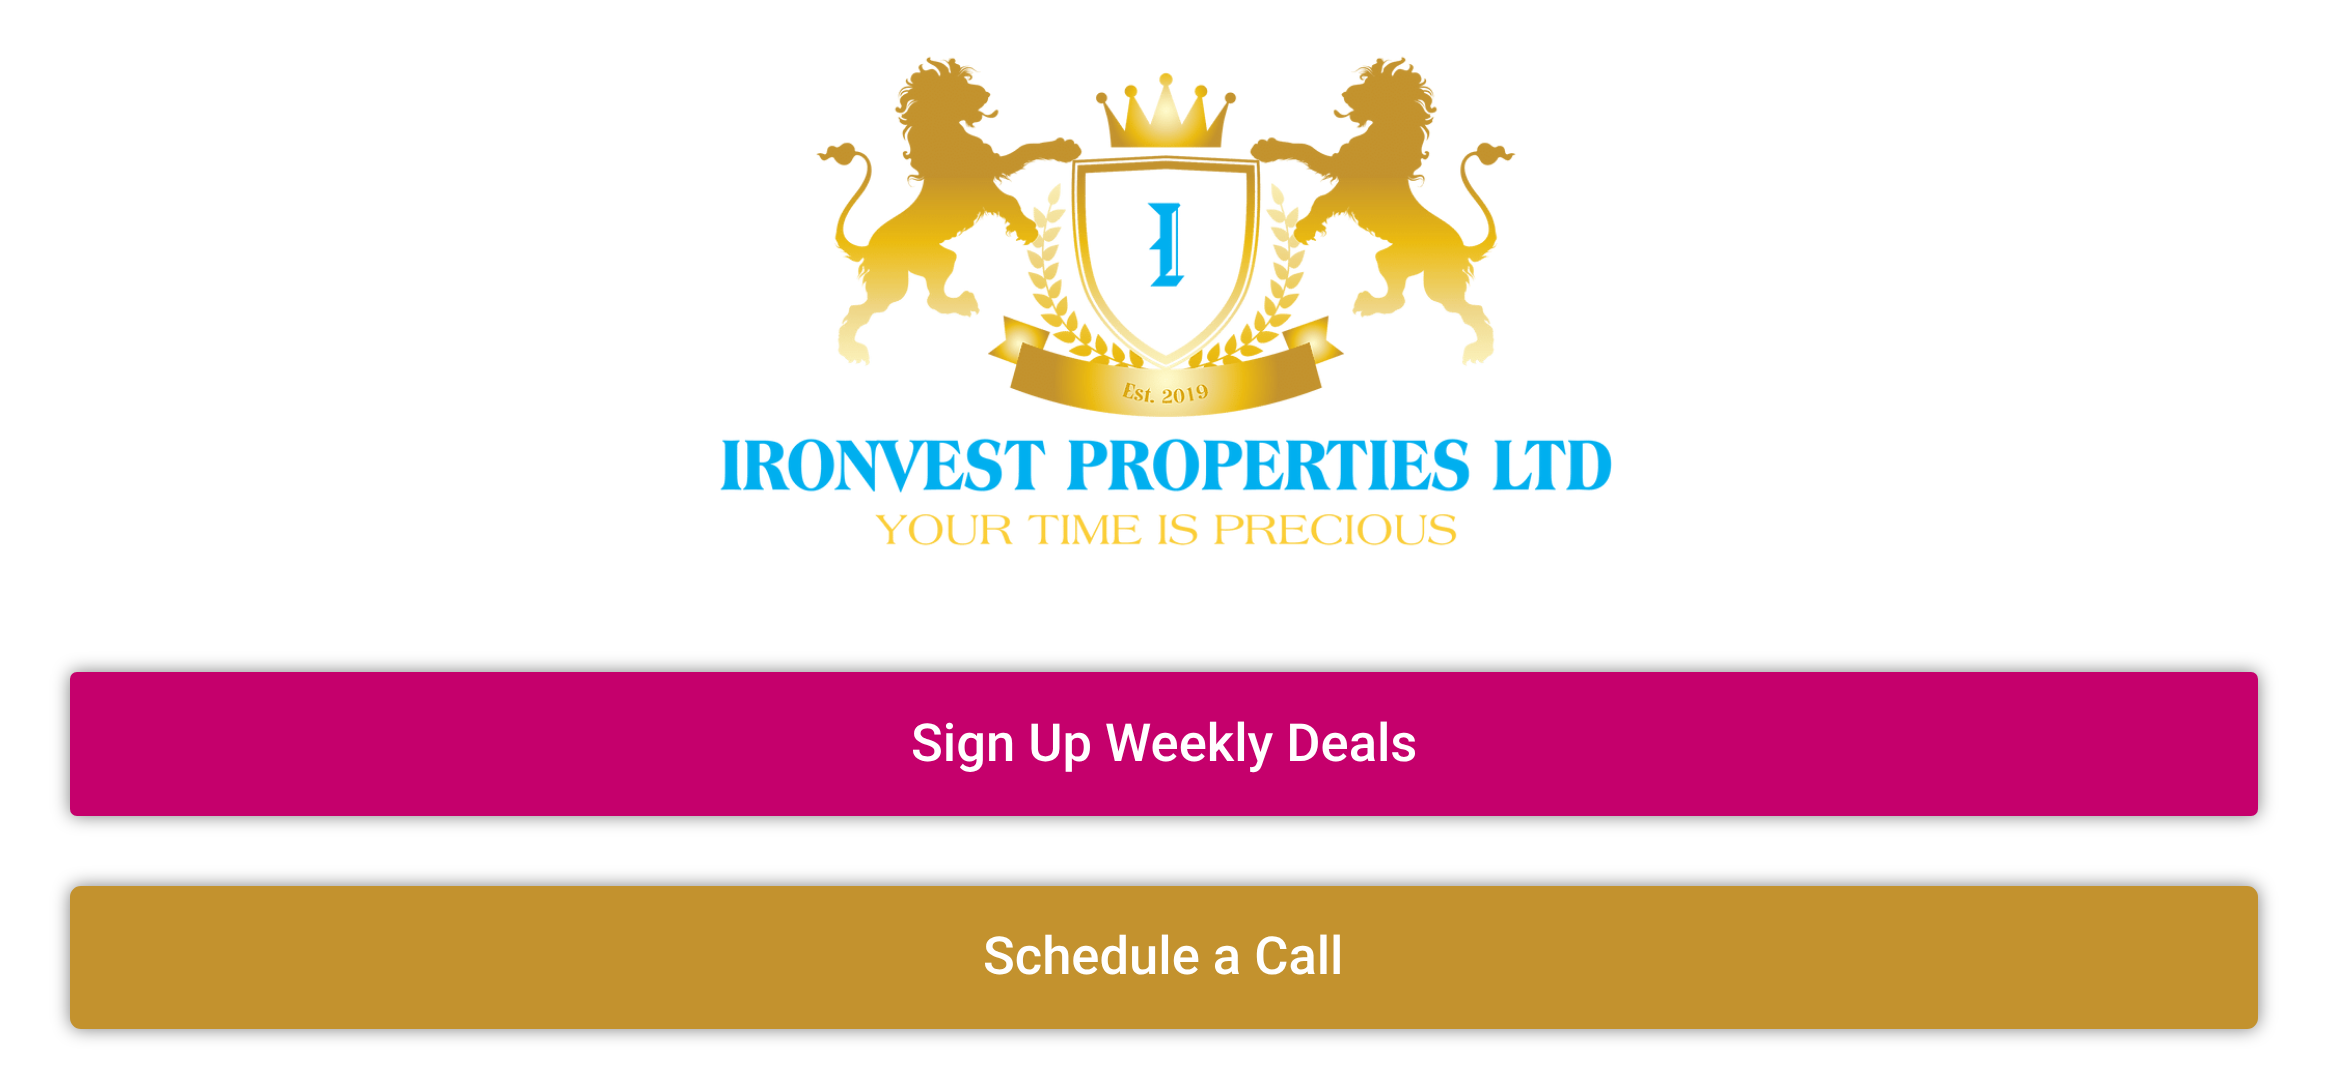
<!DOCTYPE html>
<meta charset="utf-8">
<style>body { margin: 0 } canvas { display: block }</style>
<canvas id="canvas" width="2326" height="1086"></canvas>
<img id="img1" src="images/1.png" hidden>
<script>
window.onload = function () {
    const canvas = document.getElementById('canvas');
    const context = canvas.getContext('2d');
    context.miterLimit = 4;
    context.fontKerning = 'normal';

    context.fillStyle = 'rgb(255, 255, 255)';
    context.fillRect(0, 0, 2326, 1086);
    context.drawImage(document.getElementById('img1'), 720, 56, 892, 490);
    context.fillStyle = 'rgba(0, 0, 0, 0.5)';
    context.filter = 'blur(9px)';
    context.beginPath();
    context.roundRect(70, 672, 2188, 144, 7);
    context.fill();
    context.filter = 'none';
    context.fillStyle = 'rgb(197, 0, 108)';
    context.beginPath();
    context.roundRect(75.5, 677.5, 2177, 133, 1.5);
    context.fill();
    context.strokeStyle = 'rgb(197, 0, 108)';
    context.lineWidth = 11;
    context.stroke();
    context.fillStyle = 'rgba(0, 0, 0, 0.5)';
    context.filter = 'blur(9px)';
    context.beginPath();
    context.roundRect(70, 886, 2188, 143, 11);
    context.fill();
    context.filter = 'none';
    context.fillStyle = 'rgb(195, 146, 46)';
    context.beginPath();
    context.roundRect(75.5, 891.5, 2177, 132, 5.5);
    context.fill();
    context.strokeStyle = 'rgb(195, 146, 46)';
    context.stroke();
    context.font = '500 52.5px Roboto';
    context.fillStyle = 'rgb(255, 255, 255)';
    context.fillText('Sign Up Weekly Deals', 911, 761);
    context.fillText('Schedule a Call', 983, 974);
};
</script>
